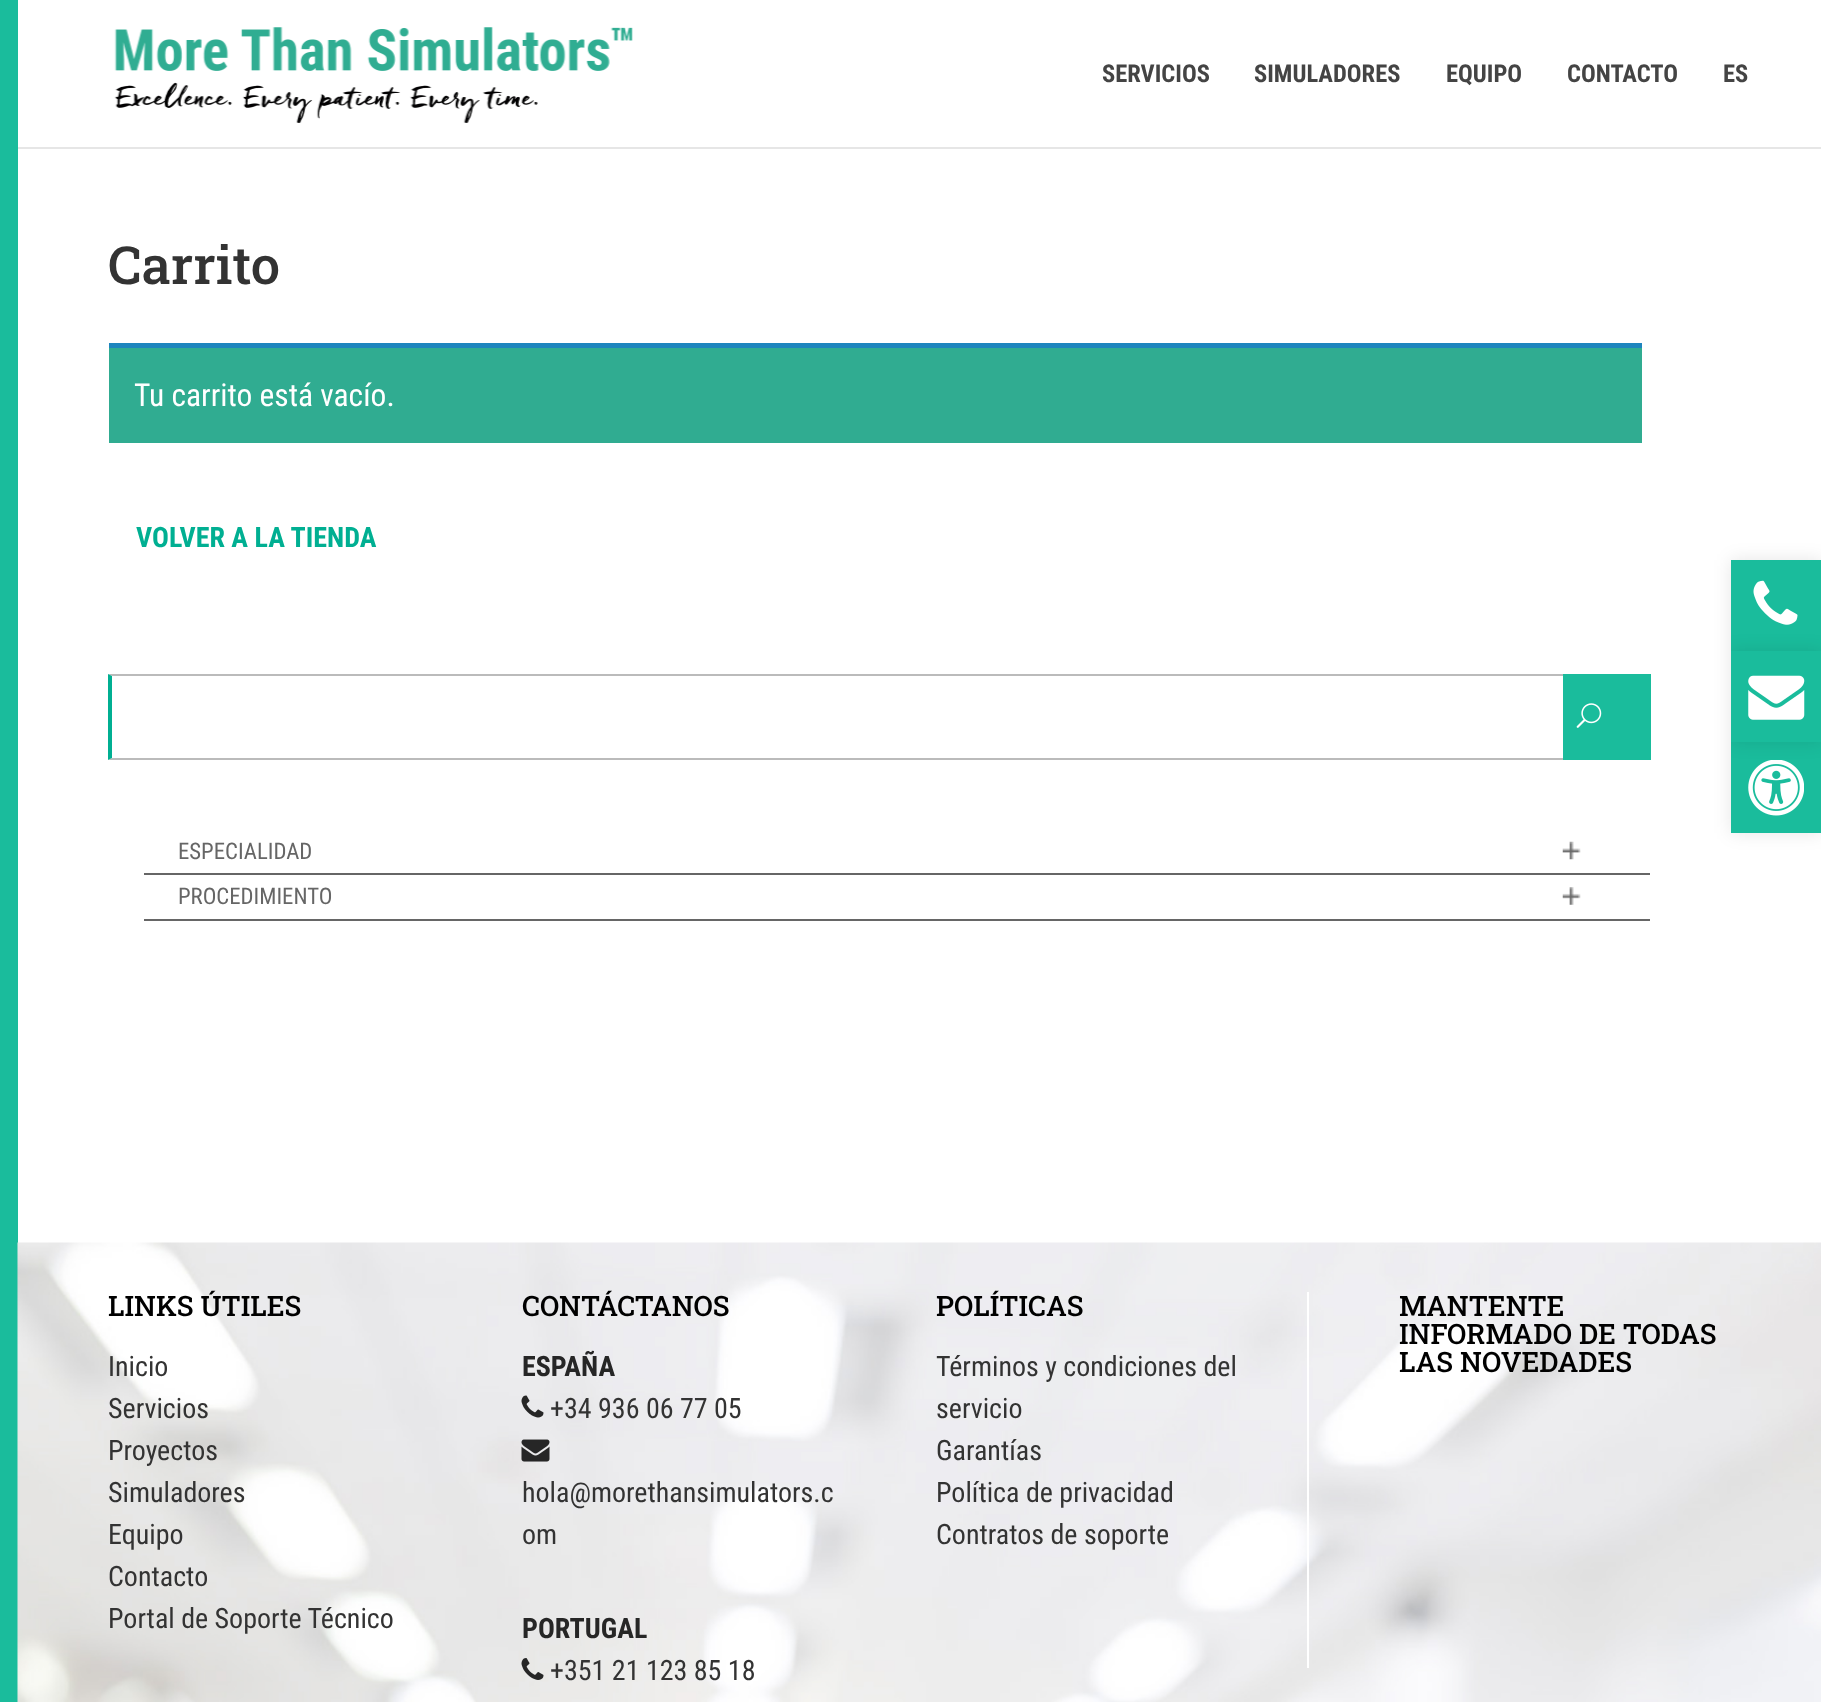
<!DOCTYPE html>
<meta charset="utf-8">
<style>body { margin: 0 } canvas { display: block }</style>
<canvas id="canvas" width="1821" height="1702"></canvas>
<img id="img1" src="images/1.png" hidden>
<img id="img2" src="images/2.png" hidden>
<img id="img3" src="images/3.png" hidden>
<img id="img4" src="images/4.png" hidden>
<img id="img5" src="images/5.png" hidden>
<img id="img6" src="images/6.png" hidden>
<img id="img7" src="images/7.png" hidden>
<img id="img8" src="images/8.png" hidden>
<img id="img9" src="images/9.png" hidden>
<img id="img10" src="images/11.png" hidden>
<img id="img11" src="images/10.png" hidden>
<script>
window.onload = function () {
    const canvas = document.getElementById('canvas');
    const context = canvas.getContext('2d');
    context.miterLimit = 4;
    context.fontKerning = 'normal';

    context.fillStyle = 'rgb(255, 255, 255)';
    context.fillRect(0, 0, 1821, 1702);
    context.fillStyle = 'rgb(26, 188, 156)';
    context.fillRect(0, 0, 18, 1702);
    context.fillStyle = 'rgb(230, 230, 230)';
    context.fillRect(18, 147, 1803, 2);
    context.drawImage(document.getElementById('img1'), 114, 27, 519, 96);
    context.fillStyle = 'rgb(48, 172, 145)';
    context.fillRect(109, 348, 1533, 95);
    context.fillStyle = 'rgb(30, 133, 190)';
    context.fillRect(109, 343, 1533, 5);
    context.fillStyle = 'rgb(187, 187, 187)';
    context.beginPath();
    context.moveTo(108, 674);
    context.lineTo(1650, 674);
    context.lineTo(1648, 676);
    context.lineTo(112, 676);
    context.closePath();
    context.fill();
    context.beginPath();
    context.moveTo(1650, 760);
    context.lineTo(108, 760);
    context.lineTo(112, 758);
    context.lineTo(1648, 758);
    context.closePath();
    context.fill();
    context.fillStyle = 'rgb(0, 175, 146)';
    context.beginPath();
    context.moveTo(108, 760);
    context.lineTo(108, 674);
    context.lineTo(112, 676);
    context.lineTo(112, 758);
    context.closePath();
    context.fill();
    context.fillStyle = 'rgb(26, 188, 156)';
    context.fillRect(1567, 676, 82, 82);
    context.fillRect(1563, 674, 87, 2);
    context.fillRect(1649, 674, 2, 86);
    context.fillRect(1563, 758, 87, 2);
    context.fillRect(1563, 674, 4, 86);
    context.drawImage(document.getElementById('img2'), 1576, 703, 26, 25);
    context.fillStyle = 'rgb(102, 102, 102)';
    context.fillRect(144, 873, 1506, 2);
    context.drawImage(document.getElementById('img3'), 1562, 841, 19, 19);
    context.fillRect(144, 919, 1506, 2);
    context.drawImage(document.getElementById('img4'), 1562, 887, 19, 18);
    context.drawImage(document.getElementById('img5'), 17, 1242, 1804, 460);
    context.drawImage(document.getElementById('img6'), 521, 1395, 23, 23);
    context.drawImage(document.getElementById('img7'), 521, 1439, 29, 23);
    context.drawImage(document.getElementById('img8'), 521, 1658, 23, 22);
    context.fillStyle = 'rgb(255, 255, 255)';
    context.fillRect(1307, 1292, 2, 376);
    context.fillStyle = 'rgba(0, 0, 0, 0.1)';
    context.filter = 'blur(9px)';
    context.beginPath();
    context.rect(1731, 560, 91, 91);
    context.fill();
    context.filter = 'none';
    context.fillStyle = 'rgb(26, 188, 156)';
    context.fillRect(1731, 560, 90, 91);
    context.drawImage(document.getElementById('img9'), 1753, 580, 45, 45);
    context.fillStyle = 'rgba(0, 0, 0, 0.1)';
    context.filter = 'blur(9px)';
    context.beginPath();
    context.rect(1731, 742, 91, 91);
    context.fill();
    context.filter = 'none';
    context.fillStyle = 'rgb(26, 188, 156)';
    context.fillRect(1731, 742, 90, 91);
    context.drawImage(document.getElementById('img10'), 1748, 760, 56, 56);
    context.fillStyle = 'rgba(0, 0, 0, 0.1)';
    context.filter = 'blur(9px)';
    context.beginPath();
    context.rect(1731, 651, 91, 91);
    context.fill();
    context.filter = 'none';
    context.fillStyle = 'rgb(26, 188, 156)';
    context.fillRect(1731, 651, 90, 91);
    context.drawImage(document.getElementById('img11'), 1748, 675, 57, 45);
    context.font = 'bold 24.5px Roboto Condensed';
    context.fillStyle = 'rgb(68, 68, 68)';
    context.fillText('SERVICIOS', 1102, 82);
    context.fillText('SIMULADORES', 1254, 82);
    context.fillText('EQUIPO', 1446, 82);
    context.fillText('CONTACTO', 1567, 82);
    context.fillText('ES', 1723, 82);
    context.font = '500 52.5px Roboto Slab';
    context.fillStyle = 'rgb(51, 51, 51)';
    context.fillText('Carrito', 108, 284);
    context.font = '31.5px Roboto Condensed';
    context.fillStyle = 'rgb(255, 255, 255)';
    context.fillText('Tu carrito está vacío.', 134, 406);
    context.font = 'bold 28px Roboto Condensed';
    context.fillStyle = 'rgb(0, 175, 146)';
    context.fillText('VOLVER A LA TIENDA', 136, 547);
    context.font = '22.75px Roboto Condensed';
    context.fillStyle = 'rgb(102, 102, 102)';
    context.fillText('ESPECIALIDAD', 178, 859);
    context.fillText('PROCEDIMIENTO', 178, 904);
    context.font = '500 28px Roboto Slab';
    context.fillStyle = 'rgb(0, 0, 0)';
    context.fillText('LINKS ÚTILES', 108, 1316);
    context.font = '28px Roboto Condensed';
    context.fillStyle = 'rgb(51, 51, 51)';
    context.fillText('Inicio', 108, 1376);
    context.fillText('Servicios', 108, 1418);
    context.fillText('Proyectos', 108, 1460);
    context.fillText('Simuladores', 108, 1502);
    context.fillText('Equipo', 108, 1544);
    context.fillText('Contacto', 108, 1586);
    context.fillText('Portal de Soporte Técnico', 108, 1628);
    context.font = '500 28px Roboto Slab';
    context.fillStyle = 'rgb(0, 0, 0)';
    context.fillText('CONTÁCTANOS', 522, 1316);
    context.font = 'bold 28px Roboto Condensed';
    context.fillStyle = 'rgb(38, 38, 38)';
    context.fillText('ESPAÑA', 522, 1376);
    context.font = '28px Roboto Condensed';
    context.fillStyle = 'rgb(51, 51, 51)';
    context.fillText('+34 936 06 77 05', 550, 1418);
    context.fillText('hola@morethansimulators.c', 522, 1502);
    context.fillText('om', 522, 1544);
    context.font = 'bold 28px Roboto Condensed';
    context.fillStyle = 'rgb(38, 38, 38)';
    context.fillText('PORTUGAL', 522, 1638);
    context.font = '28px Roboto Condensed';
    context.fillStyle = 'rgb(51, 51, 51)';
    context.fillText('+351 21 123 85 18', 550, 1680);
    context.font = '500 28px Roboto Slab';
    context.fillStyle = 'rgb(0, 0, 0)';
    context.fillText('POLÍTICAS', 936, 1316);
    context.font = '28px Roboto Condensed';
    context.fillStyle = 'rgb(51, 51, 51)';
    context.fillText('Términos y condiciones del', 936, 1376);
    context.fillText('servicio', 936, 1418);
    context.fillText('Garantías', 936, 1460);
    context.fillText('Política de privacidad', 936, 1502);
    context.fillText('Contratos de soporte', 936, 1544);
    context.font = '500 28px Roboto Slab';
    context.fillStyle = 'rgb(0, 0, 0)';
    context.fillText('MANTENTE', 1399, 1316);
    context.fillText('INFORMADO DE TODAS', 1399, 1344);
    context.fillText('LAS NOVEDADES', 1399, 1372);
};
</script>
